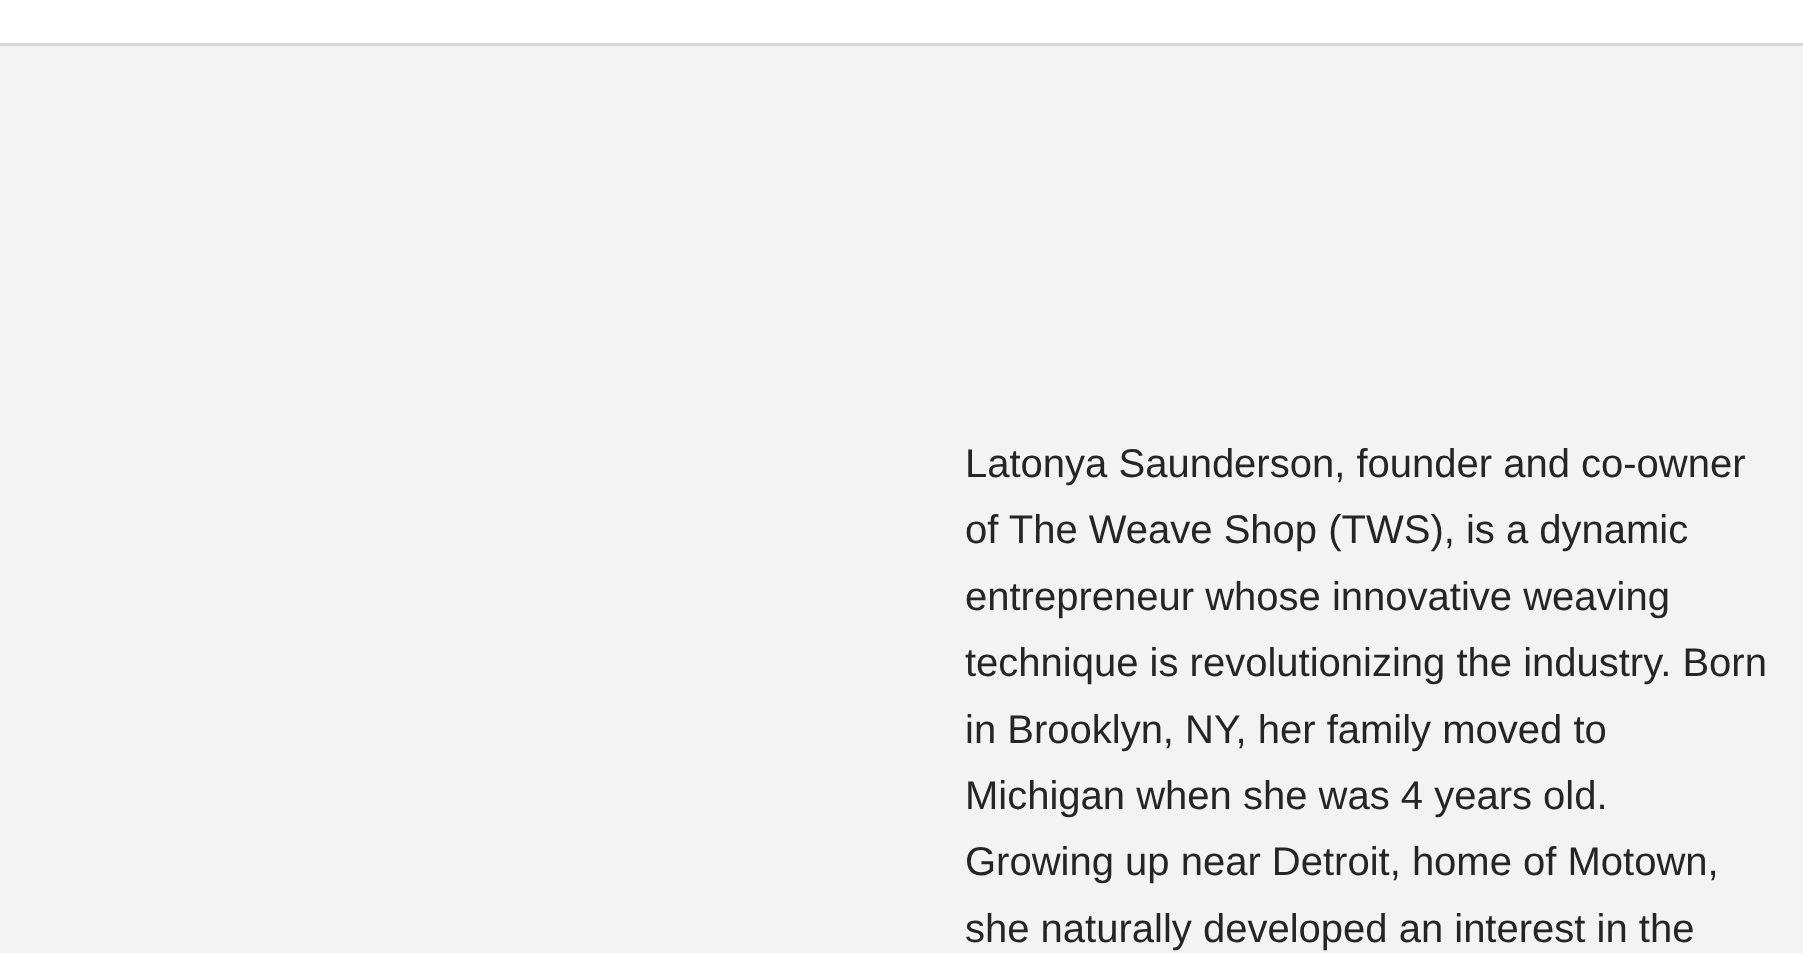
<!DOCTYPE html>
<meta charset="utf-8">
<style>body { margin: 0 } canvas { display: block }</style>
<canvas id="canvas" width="1803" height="953"></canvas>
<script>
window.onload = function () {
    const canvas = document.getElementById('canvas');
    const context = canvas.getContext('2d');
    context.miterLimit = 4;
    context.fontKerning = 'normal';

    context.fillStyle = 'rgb(243, 243, 243)';
    context.fillRect(0, 0, 1803, 953);
    context.fillStyle = 'rgb(215, 215, 215)';
    context.fillRect(0, 43, 1803, 3);
    context.fillStyle = 'rgb(255, 255, 255)';
    context.fillRect(0, 0, 1803, 43);
    context.font = '40px Liberation Sans';
    context.fillStyle = 'rgb(37, 37, 37)';
    context.fillText('Latonya Saunderson, founder and co-owner', 965, 477);
    context.fillText('of The Weave Shop (TWS), is a dynamic', 965, 543);
    context.fillText('entrepreneur whose innovative weaving', 965, 610);
    context.fillText('technique is revolutionizing the industry. Born', 965, 676);
    context.fillText('in Brooklyn, NY, her family moved to', 965, 743);
    context.fillText('Michigan when she was 4 years old.', 965, 809);
    context.fillText('Growing up near Detroit, home of Motown,', 965, 875);
    context.fillText('she naturally developed an interest in the', 965, 942);
};
</script>
